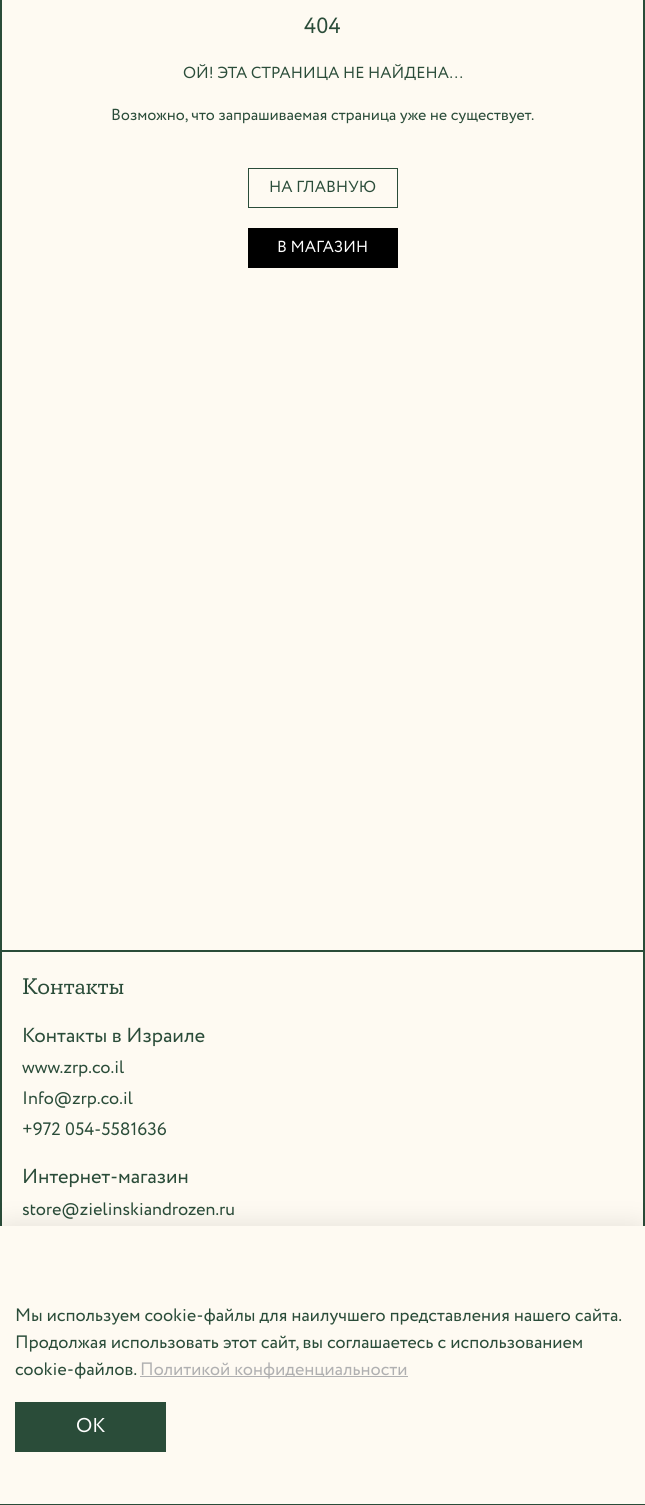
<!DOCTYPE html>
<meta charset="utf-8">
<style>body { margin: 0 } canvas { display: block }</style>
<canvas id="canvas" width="645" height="1505"></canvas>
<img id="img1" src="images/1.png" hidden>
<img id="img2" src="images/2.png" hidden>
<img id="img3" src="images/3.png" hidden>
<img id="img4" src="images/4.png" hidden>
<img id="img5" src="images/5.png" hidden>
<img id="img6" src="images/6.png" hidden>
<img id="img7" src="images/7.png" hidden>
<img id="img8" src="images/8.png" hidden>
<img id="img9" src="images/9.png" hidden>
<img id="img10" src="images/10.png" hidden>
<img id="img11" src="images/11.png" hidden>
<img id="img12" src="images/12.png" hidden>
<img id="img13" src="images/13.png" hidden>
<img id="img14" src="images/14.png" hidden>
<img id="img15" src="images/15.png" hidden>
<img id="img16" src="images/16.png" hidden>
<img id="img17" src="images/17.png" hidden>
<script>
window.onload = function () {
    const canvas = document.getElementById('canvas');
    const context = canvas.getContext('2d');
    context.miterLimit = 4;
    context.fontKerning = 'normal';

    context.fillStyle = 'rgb(254, 250, 242)';
    context.fillRect(0, 0, 645, 1505);
    context.fillStyle = 'rgb(42, 76, 57)';
    context.fillRect(643, 0, 2, 950);
    context.fillRect(0, 0, 2, 950);
    context.drawImage(document.getElementById('img1'), 304, 17, 36, 17);
    context.drawImage(document.getElementById('img2'), 183, 64, 280, 17);
    context.drawImage(document.getElementById('img3'), 112, 108, 422, 16);
    context.strokeStyle = 'rgb(42, 76, 57)';
    context.strokeRect(248.5, 168.5, 149, 39);
    context.drawImage(document.getElementById('img4'), 270, 180, 106, 13);
    context.fillStyle = 'rgb(0, 0, 0)';
    context.fillRect(248, 228, 150, 40);
    context.drawImage(document.getElementById('img5'), 278, 240, 89, 13);
    context.lineWidth = 2;
    context.strokeRect(1, 951, 643, 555);
    context.drawImage(document.getElementById('img6'), 23, 978, 101, 17);
    context.drawImage(document.getElementById('img7'), 24, 1027, 181, 20);
    context.drawImage(document.getElementById('img8'), 22, 1060, 103, 17);
    context.drawImage(document.getElementById('img9'), 24, 1091, 109, 17);
    context.drawImage(document.getElementById('img10'), 23, 1122, 143, 14);
    context.drawImage(document.getElementById('img11'), 24, 1168, 164, 20);
    context.drawImage(document.getElementById('img12'), 22, 1202, 212, 17);
    context.fillStyle = 'rgba(0, 0, 0, 0.09)';
    context.filter = 'blur(11.5px)';
    context.beginPath();
    context.rect(-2, 1223, 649, 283);
    context.fill();
    context.filter = 'none';
    context.fillStyle = 'rgb(254, 250, 242)';
    context.fillRect(0, 1226, 645, 278);
    context.fillStyle = 'rgb(42, 76, 57)';
    context.fillRect(0, 1504, 645, 1);
    context.drawImage(document.getElementById('img13'), 16, 1308, 606, 17);
    context.drawImage(document.getElementById('img14'), 16, 1335, 566, 17);
    context.drawImage(document.getElementById('img15'), 15, 1362, 122, 17);
    context.fillStyle = 'rgb(176, 176, 177)';
    context.fillRect(140, 1376, 268, 1);
    context.drawImage(document.getElementById('img16'), 141, 1362, 266, 17);
    context.fillStyle = 'rgb(42, 76, 57)';
    context.fillRect(15, 1402, 151, 50);
    context.drawImage(document.getElementById('img17'), 77, 1417, 28, 16);
};
</script>
